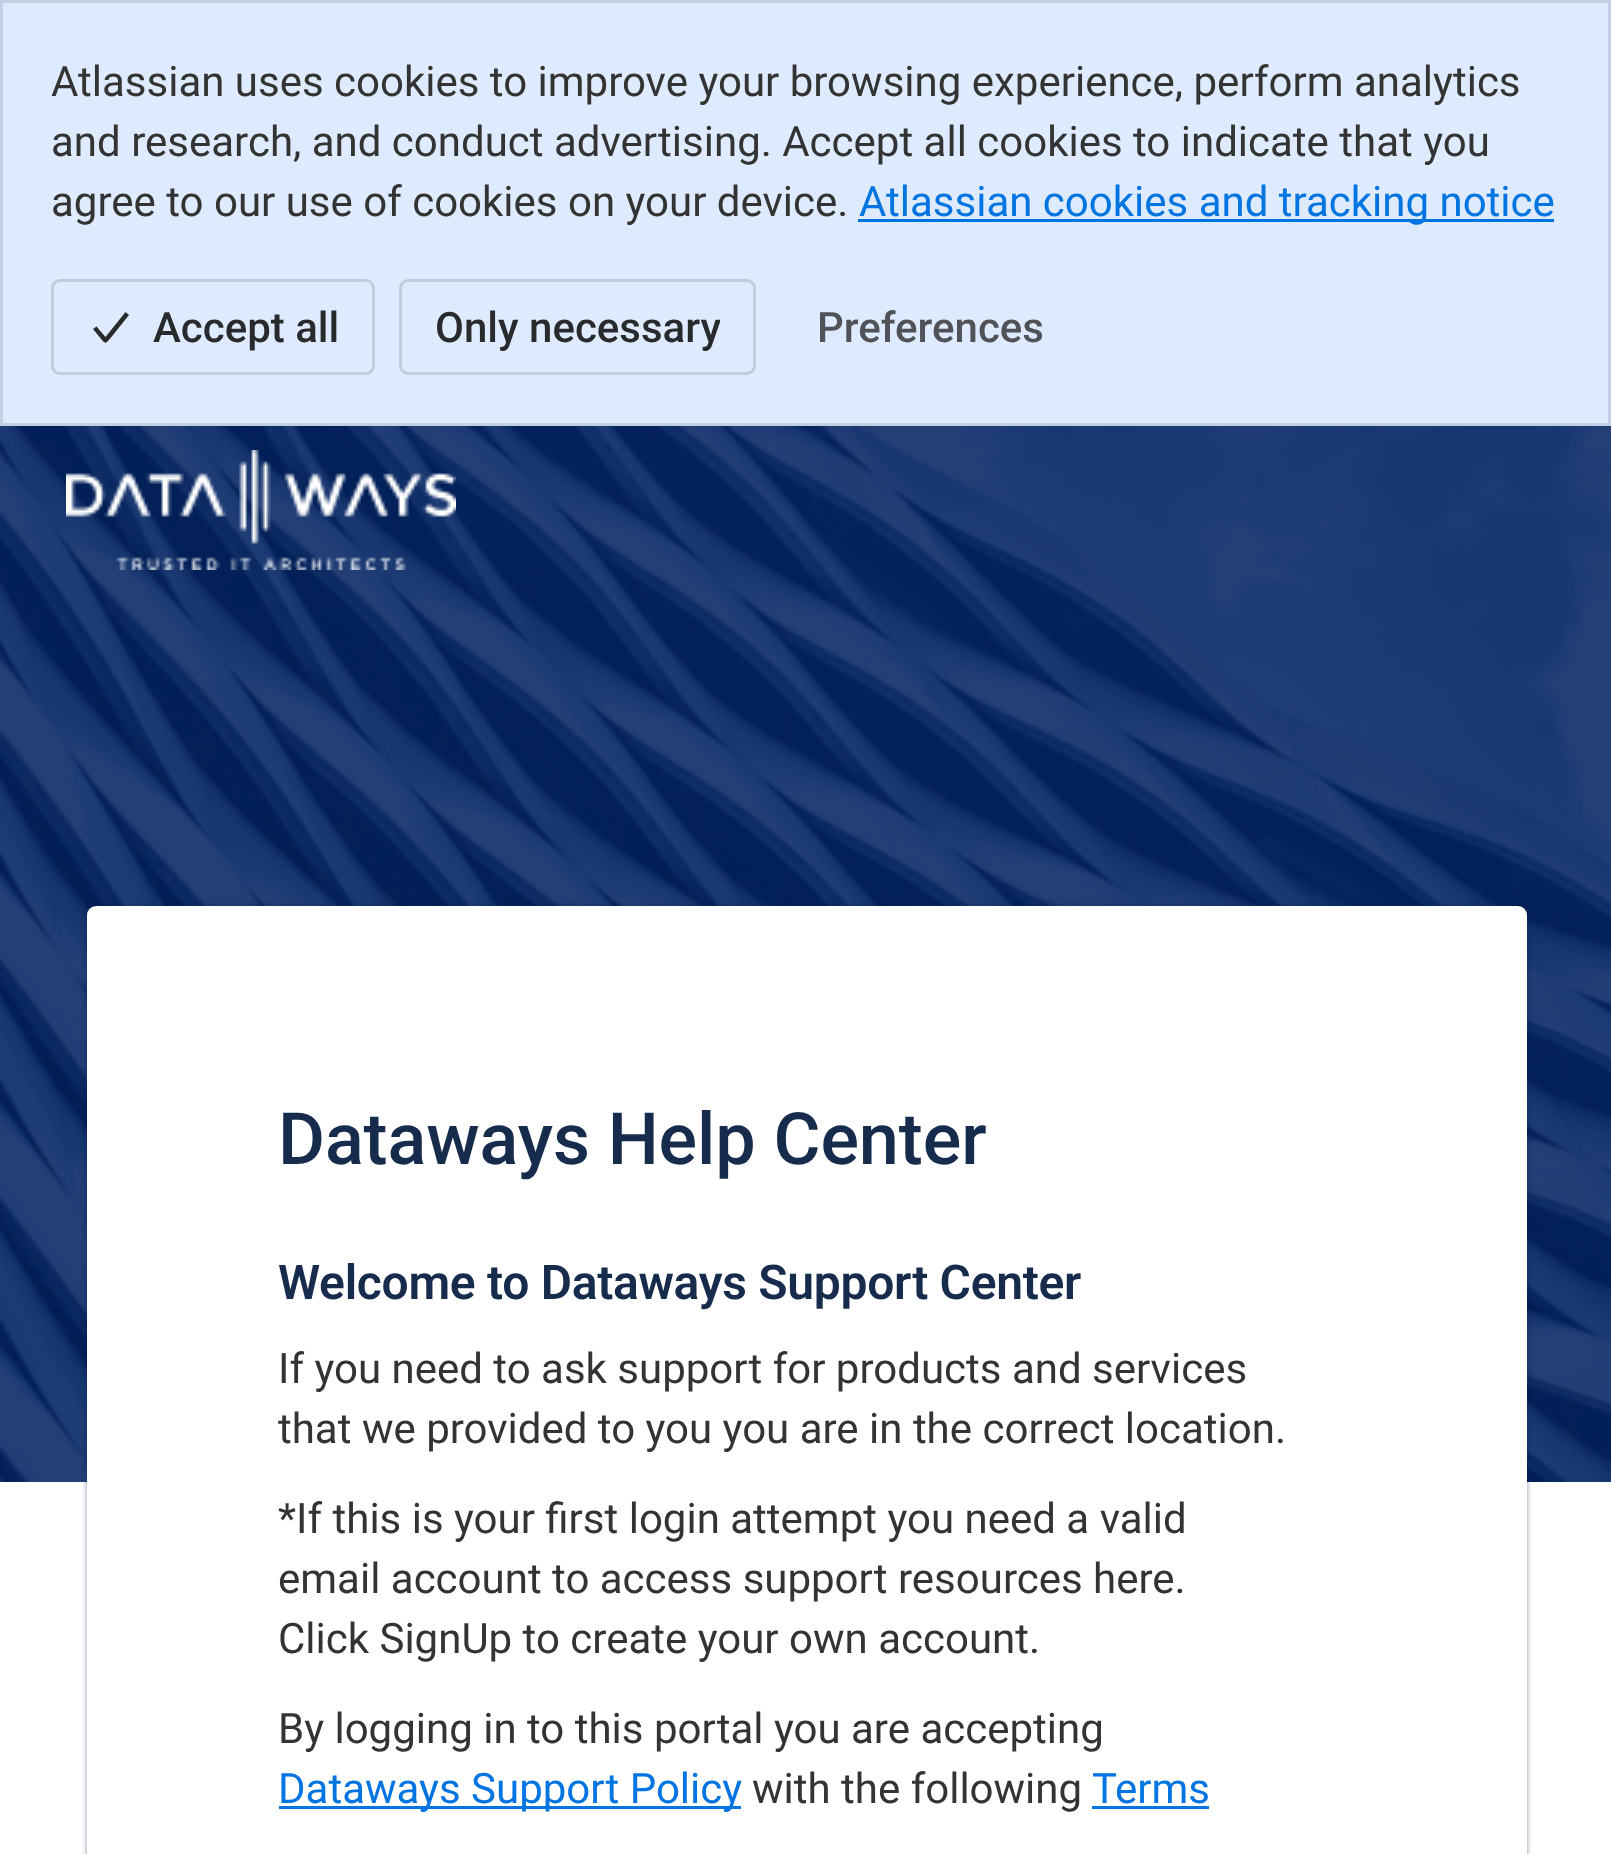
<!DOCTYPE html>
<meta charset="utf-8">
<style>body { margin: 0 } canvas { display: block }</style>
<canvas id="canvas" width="1611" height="1854"></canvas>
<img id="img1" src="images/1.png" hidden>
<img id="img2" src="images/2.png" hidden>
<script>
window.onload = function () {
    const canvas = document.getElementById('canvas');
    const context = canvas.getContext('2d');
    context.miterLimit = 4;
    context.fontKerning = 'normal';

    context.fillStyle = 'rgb(255, 255, 255)';
    context.fillRect(0, 0, 1611, 1854);
    context.fillStyle = 'rgb(222, 235, 255)';
    context.beginPath();
    context.rect(1.5, 1.5, 1608, 423);
    context.fill();
    context.strokeStyle = 'rgb(194, 208, 230)';
    context.lineWidth = 3;
    context.stroke();
    context.fillStyle = 'rgb(0, 116, 224)';
    context.fillRect(858, 219, 696, 3);
    context.fillStyle = 'rgb(41, 42, 46)';
    context.beginPath();
    context.moveTo(129, 315);
    context.lineTo(111, 337.5);
    context.bezierCurveTo(106.5, 342.5, 106, 345, 102, 340);
    context.lineTo(93, 329);
    context.lineTo(96.5, 326.5);
    context.lineTo(105.5, 337);
    context.lineTo(125.5, 312);
    context.closePath();
    context.fill();
    context.beginPath();
    context.roundRect(52.5, 280.5, 321, 93, 7.5);
    context.strokeStyle = 'rgb(192, 205, 221)';
    context.stroke();
    context.beginPath();
    context.roundRect(400.5, 280.5, 354, 93, 7.5);
    context.stroke();
    context.drawImage(document.getElementById('img1'), 0, 426, 1611, 1056);
    context.drawImage(document.getElementById('img2'), 66, 450, 390, 120);
    context.fillStyle = 'rgba(9, 30, 66, 0.13)';
    context.filter = 'blur(1.5px)';
    context.beginPath();
    context.roundRect(84, 903, 1446, 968, 12);
    context.fill();
    context.filter = 'none';
    context.fillStyle = 'rgba(9, 30, 66, 0.25)';
    context.filter = 'blur(1.5px)';
    context.beginPath();
    context.roundRect(87, 909, 1440, 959, 9);
    context.fill();
    context.filter = 'none';
    context.fillStyle = 'rgb(255, 255, 255)';
    context.beginPath();
    context.roundRect(87, 906, 1440, 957, 9);
    context.fill();
    context.fillStyle = 'rgb(0, 116, 224)';
    context.fillRect(279, 1806, 462, 3);
    context.fillRect(1092, 1806, 117, 3);
    context.font = '42px Roboto';
    context.fillStyle = 'rgb(51, 51, 51)';
    context.fillText('Atlassian uses cookies to improve your browsing experience, perform analytics', 51, 96);
    context.fillText('and research, and conduct advertising. Accept all cookies to indicate that you', 51, 156);
    context.fillText('agree to our use of cookies on your device.', 51, 216);
    context.fillStyle = 'rgb(0, 116, 224)';
    context.fillText('Atlassian cookies and tracking notice', 859, 216);
    context.font = '500 42px Roboto';
    context.fillStyle = 'rgb(41, 42, 46)';
    context.fillText('Accept all', 153, 342);
    context.save();
    context.beginPath();
    context.rect(435, 279, 285, 96);
    context.clip();
    context.fillText('Only necessary', 435, 342);
    context.restore();
    context.fillStyle = 'rgb(80, 82, 88)';
    context.fillText('Preferences', 817, 342);
    context.letterSpacing = '-0.1px';
    context.font = '500 72px Roboto';
    context.fillStyle = 'rgb(23, 43, 77)';
    context.fillText('Dataways Help Center', 278, 1164);
    context.letterSpacing = '-0.3px';
    context.font = '600 48px Roboto';
    context.fillText('Welcome to Dataways Support Center', 278, 1299);
    context.letterSpacing = '0px';
    context.font = '42px Roboto';
    context.fillStyle = 'rgb(51, 51, 51)';
    context.fillText('If you need to ask support for products and services', 278, 1383);
    context.fillText('that we provided to you you are in the correct location.', 278, 1443);
    context.fillText('*If this is your first login attempt you need a valid', 278, 1533);
    context.fillText('email account to access support resources here.', 278, 1593);
    context.fillText('Click SignUp to create your own account.', 278, 1653);
    context.fillText('By logging in to this portal you are accepting', 278, 1743);
    context.fillStyle = 'rgb(0, 116, 224)';
    context.fillText('Dataways Support Policy', 278, 1803);
    context.fillStyle = 'rgb(51, 51, 51)';
    context.fillText('with the following', 752, 1803);
    context.fillStyle = 'rgb(0, 116, 224)';
    context.fillText('Terms', 1092, 1803);
};
</script>
